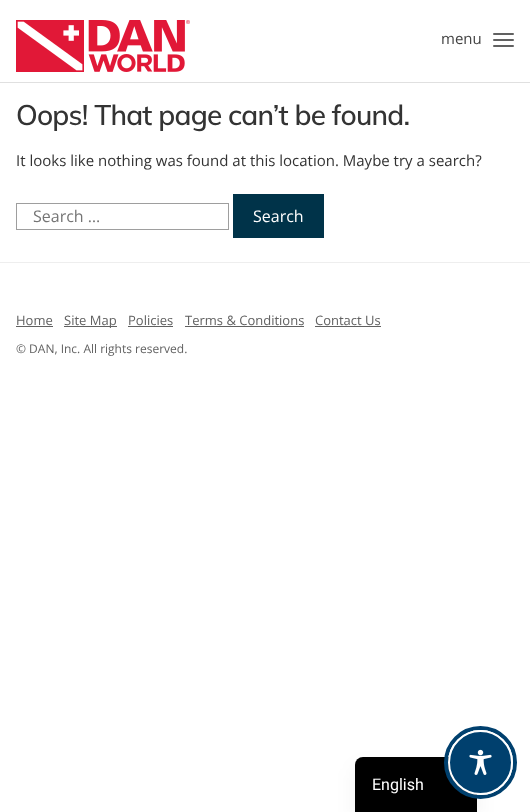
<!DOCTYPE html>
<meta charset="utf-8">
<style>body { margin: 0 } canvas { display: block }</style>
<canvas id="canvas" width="530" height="812"></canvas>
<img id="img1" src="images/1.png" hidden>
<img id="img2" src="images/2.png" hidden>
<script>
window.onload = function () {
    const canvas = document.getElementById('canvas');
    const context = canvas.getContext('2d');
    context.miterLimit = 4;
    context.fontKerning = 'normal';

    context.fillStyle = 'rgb(255, 255, 255)';
    context.fillRect(0, 0, 530, 812);
    context.fillStyle = 'rgb(224, 224, 224)';
    context.fillRect(0, 82, 530, 1);
    context.drawImage(document.getElementById('img1'), 16, 20, 174, 52);
    context.fillStyle = 'rgb(97, 97, 97)';
    context.beginPath();
    context.roundRect(493, 33, 21, 2, 1);
    context.fill();
    context.beginPath();
    context.roundRect(493, 39, 21, 2, 1);
    context.fill();
    context.beginPath();
    context.roundRect(493, 45, 21, 2, 1);
    context.fill();
    context.strokeStyle = 'rgb(158, 158, 158)';
    context.strokeRect(16.5, 203.5, 212, 26);
    context.fillStyle = 'rgb(0, 51, 73)';
    context.fillRect(233, 194, 91, 44);
    context.fillStyle = 'rgb(238, 238, 238)';
    context.fillRect(0, 262, 530, 1);
    context.fillStyle = 'rgb(97, 97, 97)';
    context.fillRect(16, 326, 37, 1);
    context.fillRect(64, 326, 53, 1);
    context.fillRect(128, 326, 45, 1);
    context.fillRect(185, 326, 119, 1);
    context.fillRect(315, 326, 66, 1);
    context.fillStyle = 'rgba(0, 0, 0, 0.05)';
    context.filter = 'blur(10px)';
    context.beginPath();
    context.roundRect(355, 767, 122, 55, 8);
    context.fill();
    context.filter = 'none';
    context.fillStyle = 'rgb(0, 0, 0)';
    context.beginPath();
    context.roundRect(355, 757, 122, 55, [8, 8, 0, 0]);
    context.fill();
    context.beginPath();
    context.arc(480.5, 762.5, 34.5, 0, 2 * Math.PI);
    context.strokeStyle = 'rgb(0, 64, 110)';
    context.lineWidth = 4;
    context.stroke();
    context.fillStyle = 'rgb(0, 64, 110)';
    context.beginPath();
    context.arc(480.5, 762.5, 31.5, 0, 2 * Math.PI);
    context.fill();
    context.strokeStyle = 'rgb(255, 255, 255)';
    context.lineWidth = 2;
    context.stroke();
    context.drawImage(document.getElementById('img2'), 469, 749, 23, 26);
    context.font = '15px Open Sans';
    context.fillStyle = 'rgb(66, 66, 66)';
    context.fillText('menu', 441, 44);
    context.letterSpacing = '-0.8px';
    context.font = '600 28px Muli';
    context.fillStyle = 'rgb(51, 51, 51)';
    context.fillText('Oops! That page can’t be found.', 16, 125);
    context.letterSpacing = '0px';
    context.font = '15px Open Sans';
    context.fillText('It looks like nothing was found at this location. Maybe try a search?', 16, 166);
    context.font = '16px Open Sans';
    context.fillStyle = 'rgb(117, 117, 117)';
    context.fillText('Search …', 33, 222);
    context.fillStyle = 'rgb(255, 255, 255)';
    context.fillText('Search', 253, 222);
    context.font = '13px Open Sans';
    context.fillStyle = 'rgb(97, 97, 97)';
    context.fillText('Home', 16, 325);
    context.fillText('Site Map', 64, 325);
    context.fillText('Policies', 128, 325);
    context.fillText('Terms & Conditions', 185, 325);
    context.fillText('Contact Us', 315, 325);
    context.font = '12px Open Sans';
    context.fillText('© DAN, Inc. All rights reserved.', 16, 353);
    context.font = '16px Roboto';
    context.fillStyle = 'rgb(255, 255, 255)';
    context.fillText('English', 372, 790);
};
</script>
